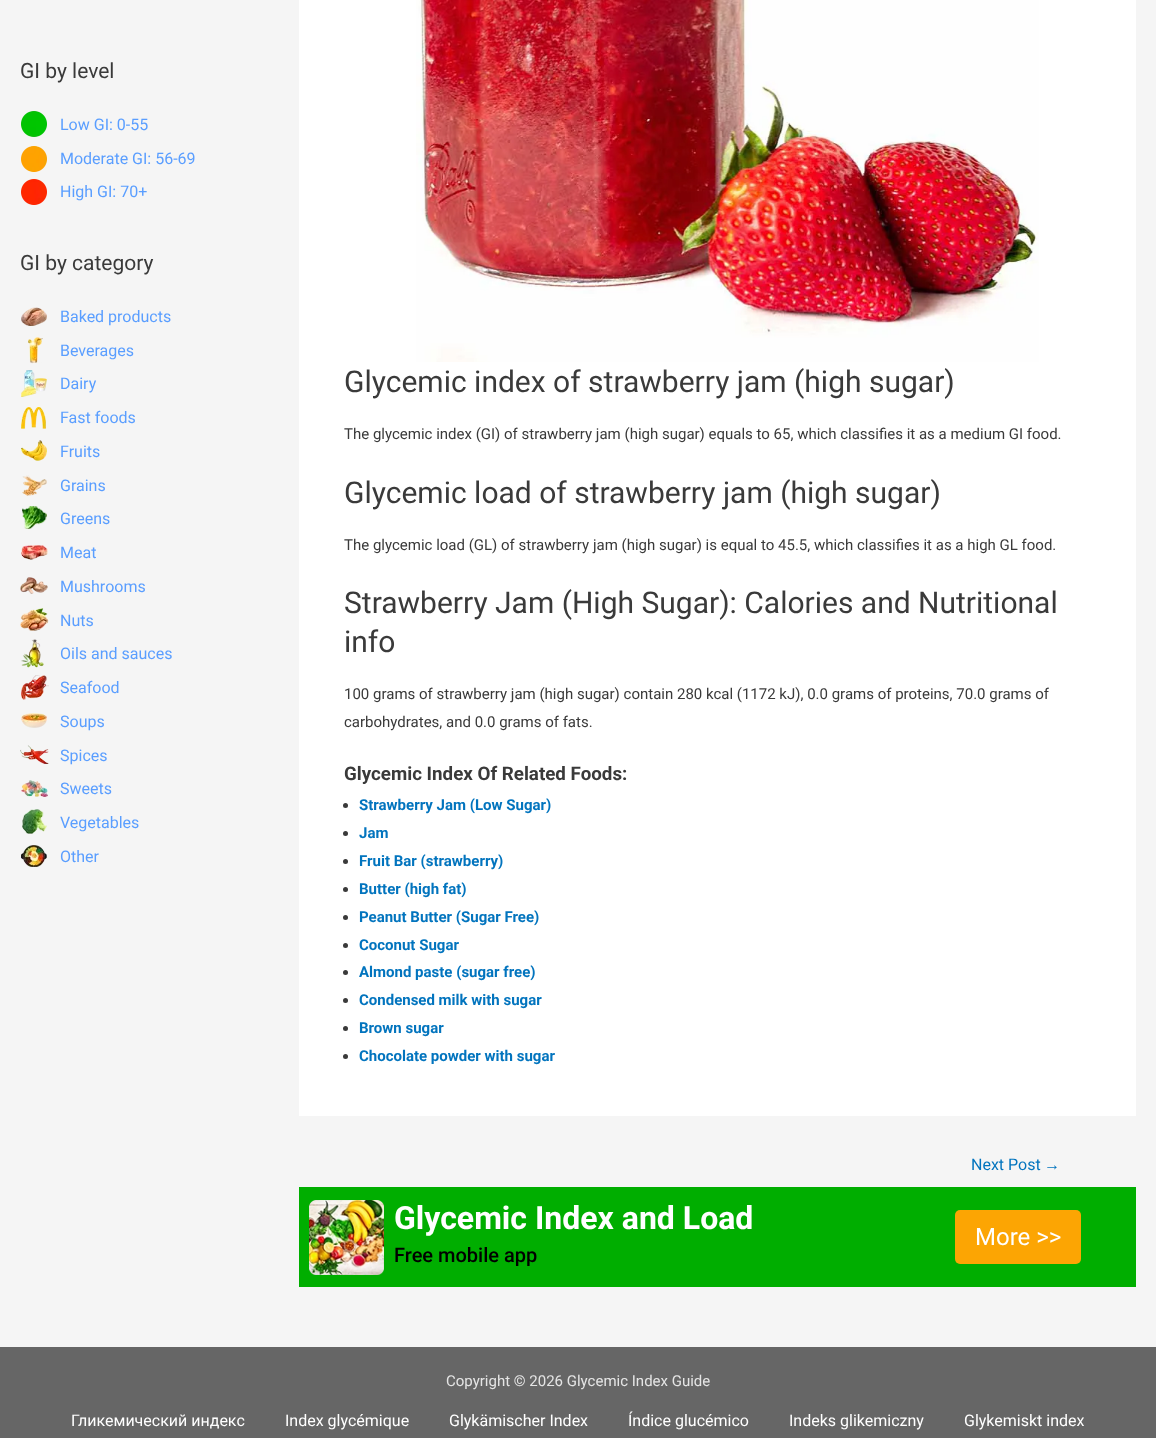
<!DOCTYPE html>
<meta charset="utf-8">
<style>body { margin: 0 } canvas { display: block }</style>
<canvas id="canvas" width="1156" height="1438"></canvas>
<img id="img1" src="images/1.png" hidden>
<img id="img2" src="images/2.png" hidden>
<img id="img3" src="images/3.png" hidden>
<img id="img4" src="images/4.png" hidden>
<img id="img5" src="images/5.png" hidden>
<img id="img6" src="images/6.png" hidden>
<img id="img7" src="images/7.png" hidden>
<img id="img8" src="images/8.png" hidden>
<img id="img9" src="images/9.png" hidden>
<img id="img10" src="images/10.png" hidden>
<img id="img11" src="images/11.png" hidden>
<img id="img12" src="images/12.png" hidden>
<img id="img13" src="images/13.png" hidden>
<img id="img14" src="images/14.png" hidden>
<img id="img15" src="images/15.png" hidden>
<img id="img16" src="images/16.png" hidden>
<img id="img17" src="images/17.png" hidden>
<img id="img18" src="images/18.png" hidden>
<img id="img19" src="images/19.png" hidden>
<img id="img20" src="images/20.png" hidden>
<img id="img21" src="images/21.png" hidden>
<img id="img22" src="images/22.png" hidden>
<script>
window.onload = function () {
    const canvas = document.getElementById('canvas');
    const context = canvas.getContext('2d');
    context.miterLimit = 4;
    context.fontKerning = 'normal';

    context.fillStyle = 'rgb(245, 245, 245)';
    context.fillRect(0, 0, 1156, 1438);
    context.drawImage(document.getElementById('img1'), 21, 111, 26, 26);
    context.drawImage(document.getElementById('img2'), 21, 146, 26, 26);
    context.drawImage(document.getElementById('img3'), 21, 179, 26, 26);
    context.drawImage(document.getElementById('img4'), 21, 307, 26, 19);
    context.drawImage(document.getElementById('img5'), 28, 337, 15, 27);
    context.drawImage(document.getElementById('img6'), 21, 370, 26, 27);
    context.drawImage(document.getElementById('img7'), 21, 407, 25, 22);
    context.drawImage(document.getElementById('img8'), 21, 440, 26, 21);
    context.drawImage(document.getElementById('img9'), 22, 475, 25, 21);
    context.drawImage(document.getElementById('img10'), 22, 506, 25, 23);
    context.drawImage(document.getElementById('img11'), 21, 545, 27, 15);
    context.drawImage(document.getElementById('img12'), 20, 577, 28, 17);
    context.drawImage(document.getElementById('img13'), 20, 608, 29, 23);
    context.drawImage(document.getElementById('img14'), 21, 639, 23, 29);
    context.drawImage(document.getElementById('img15'), 21, 675, 28, 25);
    context.drawImage(document.getElementById('img16'), 21, 713, 26, 15);
    context.drawImage(document.getElementById('img17'), 20, 745, 29, 19);
    context.drawImage(document.getElementById('img18'), 21, 780, 27, 17);
    context.drawImage(document.getElementById('img19'), 22, 809, 25, 25);
    context.drawImage(document.getElementById('img20'), 21, 845, 26, 22);
    context.fillStyle = 'rgb(255, 255, 255)';
    context.fillRect(299, 0, 837, 1116);
    context.drawImage(document.getElementById('img21'), 416, 0, 623, 362);
    context.fillStyle = 'rgb(58, 58, 58)';
    context.beginPath();
    context.arc(345.5, 805.5, 2.5, 0, 2 * Math.PI);
    context.fill();
    context.beginPath();
    context.arc(345.5, 833.5, 2.5, 0, 2 * Math.PI);
    context.fill();
    context.beginPath();
    context.arc(345.5, 861.5, 2.5, 0, 2 * Math.PI);
    context.fill();
    context.beginPath();
    context.arc(345.5, 889.5, 2.5, 0, 2 * Math.PI);
    context.fill();
    context.beginPath();
    context.arc(345.5, 917.5, 2.5, 0, 2 * Math.PI);
    context.fill();
    context.beginPath();
    context.arc(345.5, 945.5, 2.5, 0, 2 * Math.PI);
    context.fill();
    context.beginPath();
    context.arc(345.5, 972.5, 2.5, 0, 2 * Math.PI);
    context.fill();
    context.beginPath();
    context.arc(345.5, 1000.5, 2.5, 0, 2 * Math.PI);
    context.fill();
    context.beginPath();
    context.arc(345.5, 1028.5, 2.5, 0, 2 * Math.PI);
    context.fill();
    context.beginPath();
    context.arc(345.5, 1056.5, 2.5, 0, 2 * Math.PI);
    context.fill();
    context.fillStyle = 'rgb(0, 174, 0)';
    context.fillRect(299, 1187, 837, 100);
    context.drawImage(document.getElementById('img22'), 309, 1200, 75, 75);
    context.fillStyle = 'rgb(252, 165, 3)';
    context.beginPath();
    context.roundRect(955, 1210, 126, 54, 5);
    context.fill();
    context.fillStyle = 'rgb(102, 102, 102)';
    context.fillRect(0, 1347, 1156, 91);
    context.font = '21px Roboto';
    context.fillStyle = 'rgb(58, 58, 58)';
    context.fillText('GI by level', 20, 78);
    context.font = '16px Roboto';
    context.fillStyle = 'rgb(90, 158, 255)';
    context.fillText('Low GI: 0-55', 60, 130);
    context.fillText('Moderate GI: 56-69', 60, 164);
    context.fillText('High GI: 70+', 60, 197);
    context.font = '21px Roboto';
    context.fillStyle = 'rgb(58, 58, 58)';
    context.fillText('GI by category', 20, 270);
    context.font = '16px Roboto';
    context.fillStyle = 'rgb(90, 158, 255)';
    context.fillText('Baked products', 60, 322);
    context.fillText('Beverages', 60, 356);
    context.fillText('Dairy', 60, 389);
    context.fillText('Fast foods', 60, 423);
    context.fillText('Fruits', 60, 457);
    context.fillText('Grains', 60, 491);
    context.fillText('Greens', 60, 524);
    context.fillText('Meat', 60, 558);
    context.fillText('Mushrooms', 60, 592);
    context.fillText('Nuts', 60, 626);
    context.fillText('Oils and sauces', 60, 659);
    context.fillText('Seafood', 60, 693);
    context.fillText('Soups', 60, 727);
    context.fillText('Spices', 60, 761);
    context.fillText('Sweets', 60, 794);
    context.fillText('Vegetables', 60, 828);
    context.fillText('Other', 60, 862);
    context.font = '30px Roboto';
    context.fillStyle = 'rgb(58, 58, 58)';
    context.fillText('Glycemic index of strawberry jam (high sugar)', 344, 392);
    context.font = '15px Roboto';
    context.fillText('The glycemic index (GI) of strawberry jam (high sugar) equals to 65, which classifies it as a medium GI food.', 344, 439);
    context.font = '30px Roboto';
    context.fillText('Glycemic load of strawberry jam (high sugar)', 344, 503);
    context.font = '15px Roboto';
    context.fillText('The glycemic load (GL) of strawberry jam (high sugar) is equal to 45.5, which classifies it as a high GL food.', 344, 550);
    context.font = '30px Roboto';
    context.fillText('Strawberry Jam (High Sugar): Calories and Nutritional', 344, 613);
    context.fillText('info', 344, 652);
    context.font = '15px Roboto';
    context.fillText('100 grams of strawberry jam (high sugar) contain 280 kcal (1172 kJ), 0.0 grams of proteins, 70.0 grams of', 344, 699);
    context.fillText('carbohydrates, and 0.0 grams of fats.', 344, 727);
    context.font = 'bold 18.75px Roboto';
    context.fillText('Glycemic Index Of Related Foods:', 344, 780);
    context.font = 'bold 15px Roboto';
    context.fillStyle = 'rgb(2, 116, 190)';
    context.fillText('Strawberry Jam (Low Sugar)', 359, 810);
    context.fillText('Jam', 359, 838);
    context.fillText('Fruit Bar (strawberry)', 359, 866);
    context.fillText('Butter (high fat)', 359, 894);
    context.fillText('Peanut Butter (Sugar Free)', 359, 922);
    context.fillText('Coconut Sugar', 359, 950);
    context.fillText('Almond paste (sugar free)', 359, 977);
    context.fillText('Condensed milk with sugar', 359, 1005);
    context.fillText('Brown sugar', 359, 1033);
    context.fillText('Chocolate powder with sugar', 359, 1061);
    context.font = '16px Roboto';
    context.fillText('Next Post', 971, 1170);
    context.font = '16px Liberation Sans';
    context.fillText('→', 1044, 1170);
    context.font = 'bold 32px Roboto';
    context.fillStyle = 'rgb(255, 255, 255)';
    context.fillText('Glycemic Index and Load', 394, 1229);
    context.font = '500 20px Roboto';
    context.fillStyle = 'rgb(0, 0, 0)';
    context.fillText('Free mobile app', 394, 1262);
    context.font = '24px Roboto';
    context.fillStyle = 'rgb(255, 255, 255)';
    context.fillText('More >>', 975, 1245);
    context.font = '15px Roboto';
    context.fillStyle = 'rgb(229, 229, 229)';
    context.fillText('Copyright © 2026 Glycemic Index Guide', 446, 1386);
    context.font = '16px Roboto';
    context.fillStyle = 'rgb(255, 255, 255)';
    context.fillText('Гликемический индекс', 71, 1426);
    context.fillText('Index glycémique', 285, 1426);
    context.fillText('Glykämischer Index', 449, 1426);
    context.fillText('Índice glucémico', 628, 1426);
    context.fillText('Indeks glikemiczny', 789, 1426);
    context.fillText('Glykemiskt index', 964, 1426);
};
</script>
